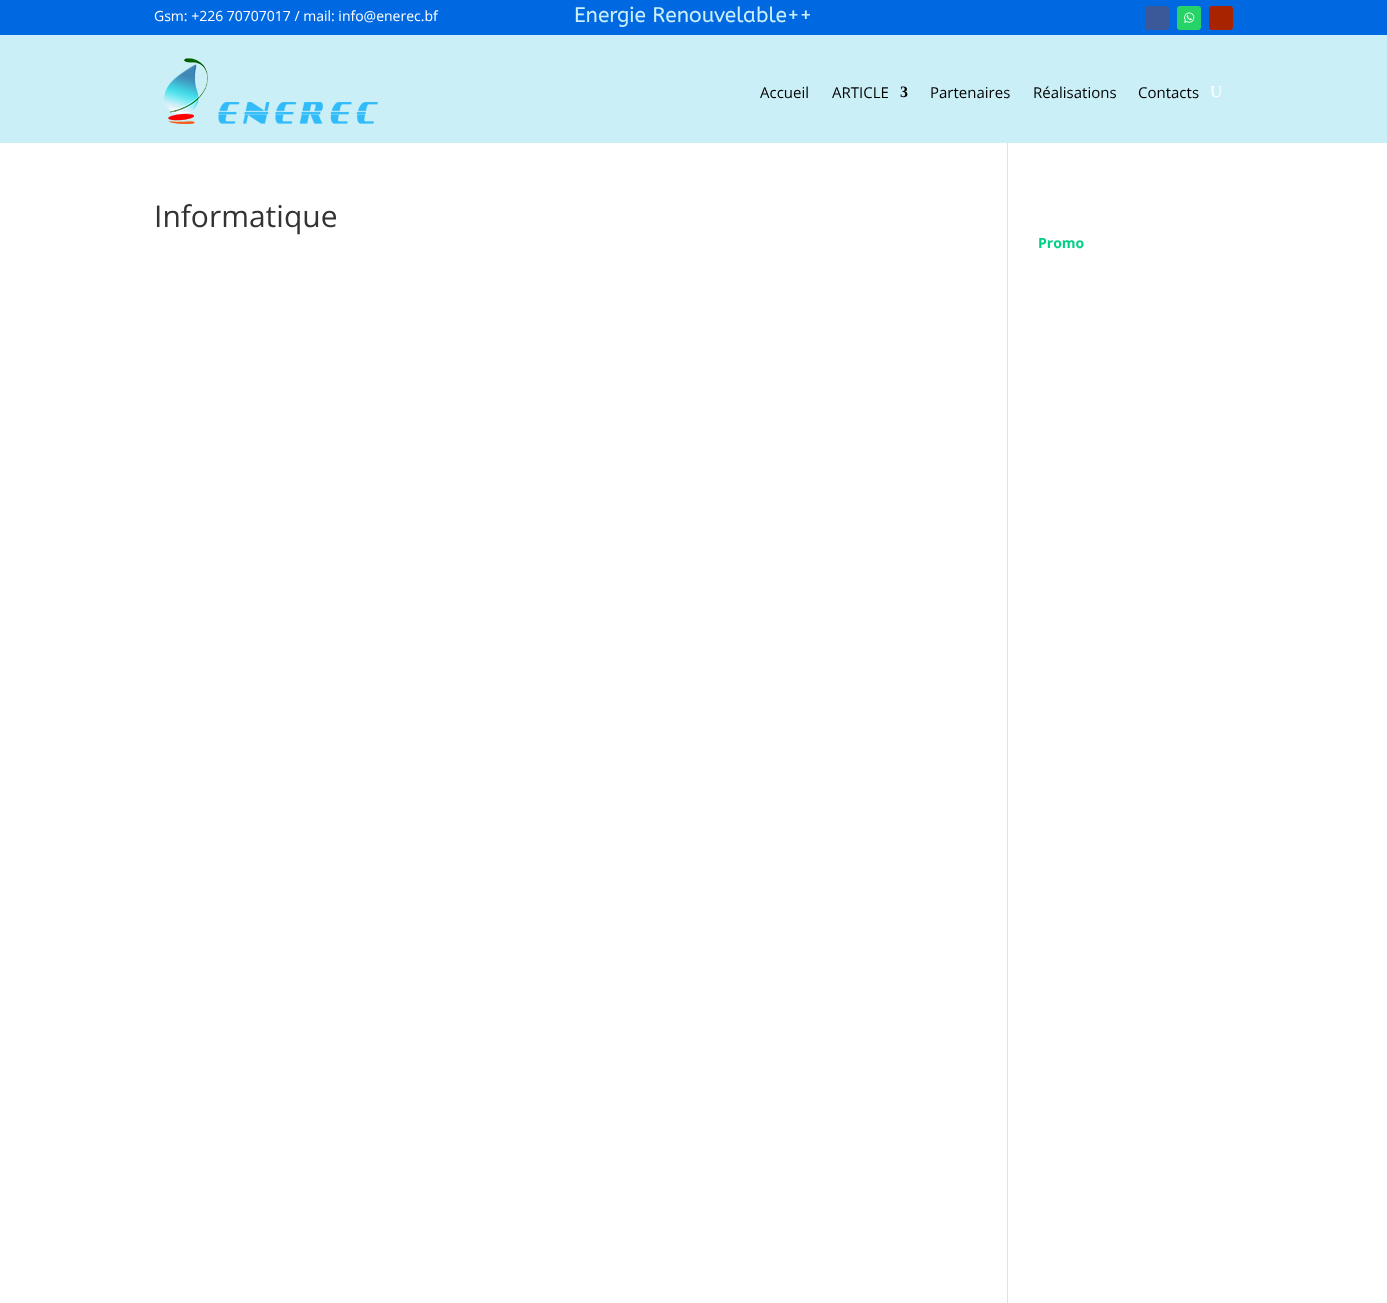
<!DOCTYPE html>
<meta charset="utf-8">
<style>body { margin: 0 } canvas { display: block }</style>
<canvas id="canvas" width="1387" height="1303"></canvas>
<img id="img1" src="images/1.png" hidden>
<img id="img2" src="images/2.png" hidden>
<script>
window.onload = function () {
    const canvas = document.getElementById('canvas');
    const context = canvas.getContext('2d');
    context.miterLimit = 4;
    context.fontKerning = 'normal';

    context.fillStyle = 'rgb(255, 255, 255)';
    context.fillRect(0, 0, 1387, 1303);
    context.fillStyle = 'rgb(0, 105, 226)';
    context.fillRect(0, 0, 1387, 35);
    context.fillStyle = 'rgb(59, 89, 152)';
    context.beginPath();
    context.roundRect(1145, 6, 24, 24, 3);
    context.fill();
    context.fillStyle = 'rgb(37, 211, 102)';
    context.beginPath();
    context.roundRect(1177, 6, 24, 24, 3);
    context.fill();
    context.drawImage(document.getElementById('img1'), 1184, 12, 11, 11);
    context.fillStyle = 'rgb(168, 36, 0)';
    context.beginPath();
    context.roundRect(1209, 6, 24, 24, 3);
    context.fill();
    context.fillStyle = 'rgb(202, 239, 246)';
    context.fillRect(0, 35, 1387, 108);
    context.drawImage(document.getElementById('img2'), 163, 58, 215, 66);
    context.fillStyle = 'rgb(226, 226, 226)';
    context.fillRect(1007, 143, 1, 1160);
    context.font = '14px Open Sans';
    context.fillStyle = 'rgb(255, 255, 255)';
    context.fillText('Gsm: +226 70707017 / mail: info@enerec.bf', 154, 21);
    context.font = '21px ABeeZee';
    context.fillStyle = 'rgb(202, 239, 246)';
    context.fillText('Energie Renouvelable++', 574, 22);
    context.font = '15px Open Sans';
    context.fillStyle = 'rgb(0, 0, 0)';
    context.fillText('Accueil', 760, 98);
    context.fillText('ARTICLE', 832, 98);
    context.font = 'bold 16px Liberation Serif';
    context.fillText('3', 900, 97);
    context.font = '15px Open Sans';
    context.fillText('Partenaires', 930, 98);
    context.fillText('Réalisations', 1033, 98);
    context.fillText('Contacts', 1138, 98);
    context.font = '17px Liberation Serif';
    context.fillStyle = 'rgb(255, 255, 255)';
    context.fillText('U', 1210, 97);
    context.font = '30px Open Sans';
    context.fillStyle = 'rgb(51, 51, 51)';
    context.fillText('Informatique', 154, 227);
    context.font = 'bold 14px Open Sans';
    context.fillStyle = 'rgb(0, 208, 132)';
    context.fillText('Promo', 1038, 248);
};
</script>
